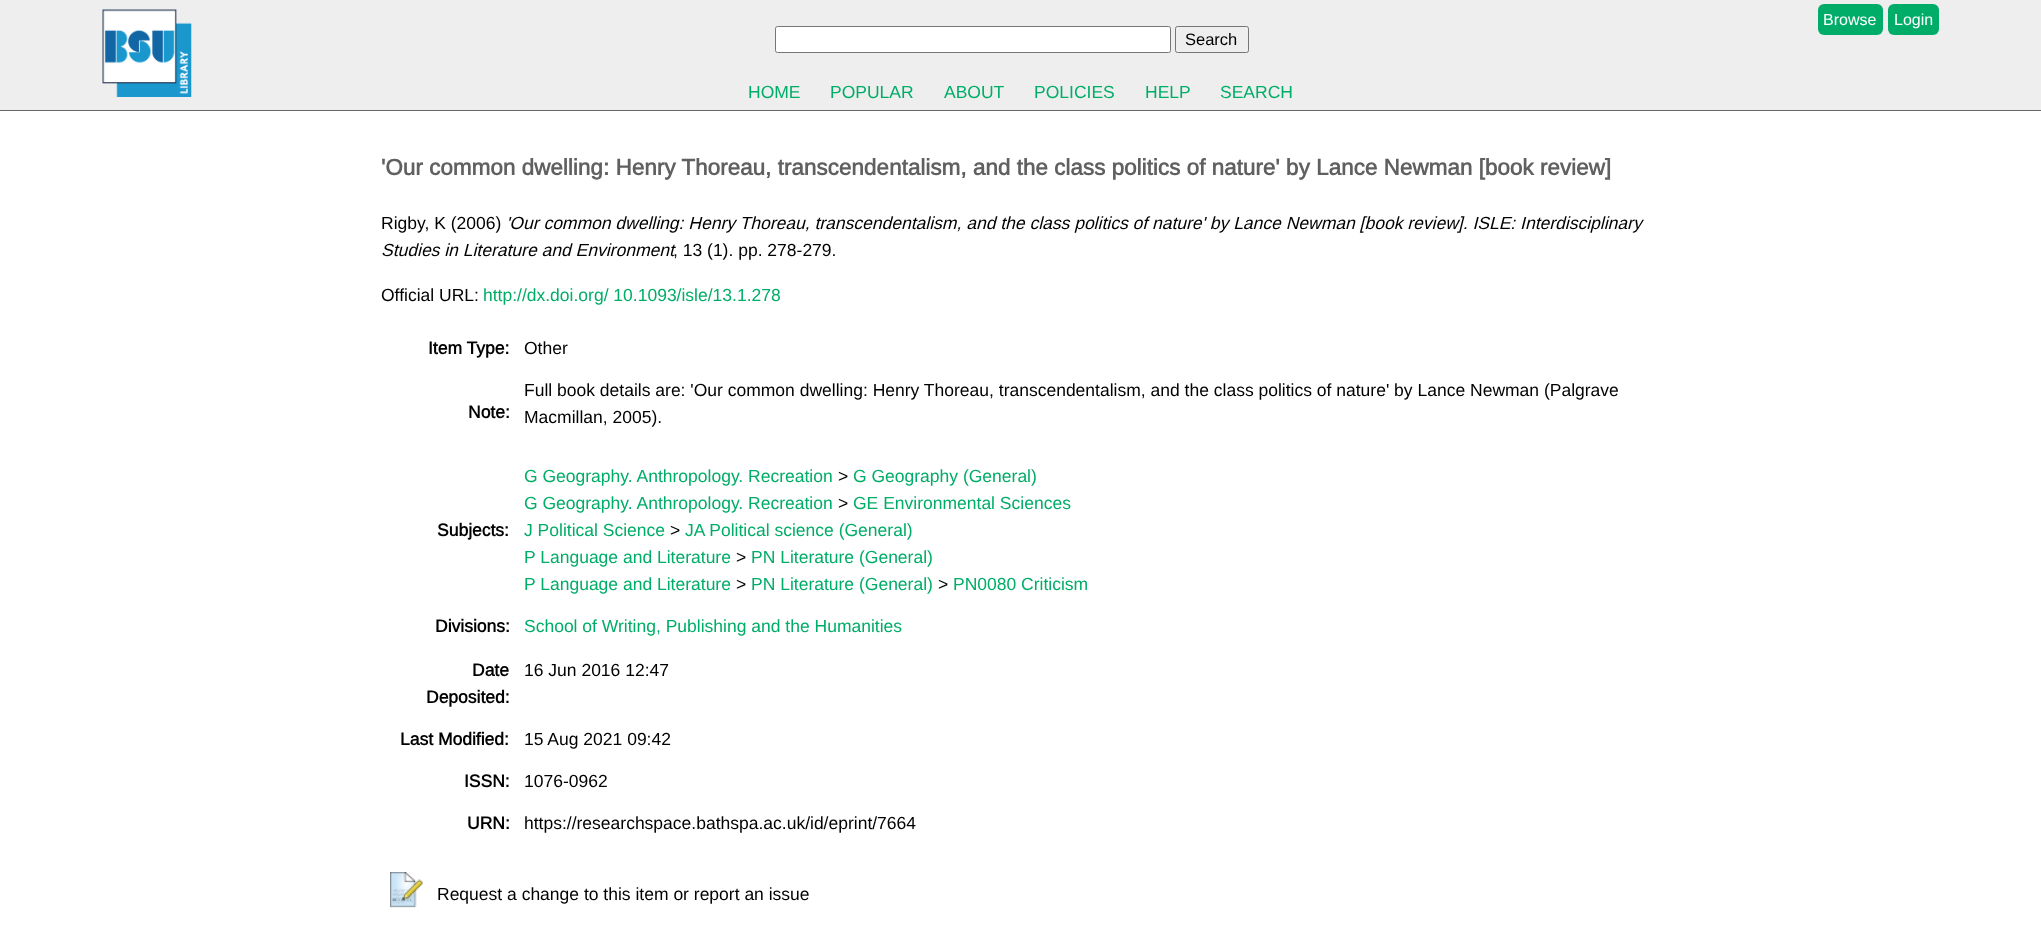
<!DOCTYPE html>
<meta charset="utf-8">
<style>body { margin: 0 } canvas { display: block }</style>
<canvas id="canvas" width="2041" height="926"></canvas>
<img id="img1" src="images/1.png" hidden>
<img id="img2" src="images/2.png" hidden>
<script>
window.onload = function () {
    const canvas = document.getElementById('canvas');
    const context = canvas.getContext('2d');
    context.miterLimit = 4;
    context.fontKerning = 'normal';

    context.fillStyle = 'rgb(255, 255, 255)';
    context.fillRect(0, 0, 2041, 926);
    context.fillStyle = 'rgb(238, 238, 238)';
    context.fillRect(0, 0, 2041, 110);
    context.fillStyle = 'rgb(102, 102, 102)';
    context.fillRect(0, 110, 2041, 1);
    context.drawImage(document.getElementById('img1'), 102, 9, 90, 88);
    context.fillStyle = 'rgb(0, 173, 104)';
    context.beginPath();
    context.roundRect(1818, 4, 65, 31, 6);
    context.fill();
    context.beginPath();
    context.roundRect(1888, 4, 51, 31, 6);
    context.fill();
    context.fillStyle = 'rgb(255, 255, 255)';
    context.beginPath();
    context.roundRect(775.5, 26.5, 395, 26, 2);
    context.fill();
    context.strokeStyle = 'rgb(118, 118, 118)';
    context.stroke();
    context.beginPath();
    context.roundRect(1175.5, 26.5, 73, 26, 2);
    context.stroke();
    context.drawImage(document.getElementById('img2'), 390, 872, 33, 36);
    context.font = '16px Liberation Sans';
    context.fillText('Browse', 1823, 25);
    context.fillText('Login', 1894, 25);
    context.font = '16.5px "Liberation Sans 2"';
    context.fillStyle = 'rgb(0, 0, 0)';
    context.fillText('Search', 1185, 45);
    context.font = '17.5px Liberation Sans';
    context.fillStyle = 'rgb(0, 173, 104)';
    context.fillText('HOME', 748, 98);
    context.fillText('POPULAR', 830, 98);
    context.fillText('ABOUT', 944, 98);
    context.fillText('POLICIES', 1034, 98);
    context.fillText('HELP', 1145, 98);
    context.fillText('SEARCH', 1220, 98);
    context.font = 'bold 22.5px Liberation Sans';
    context.fillStyle = 'rgb(96, 96, 96)';
    context.fillText('\'Our common dwelling: Henry Thoreau, transcendentalism, and the class politics of nature\' by Lance Newman [book review]', 381, 175);
    context.font = '17.5px Liberation Sans';
    context.fillStyle = 'rgb(0, 0, 0)';
    context.fillText('Rigby, K (2006)', 381, 229);
    context.font = 'italic 17.5px Liberation Sans';
    context.fillText('\'Our common dwelling: Henry Thoreau, transcendentalism, and the class politics of nature\' by Lance Newman [book review]. ISLE: Interdisciplinary', 506, 229);
    context.fillText('Studies in Literature and Environment', 381, 256);
    context.font = '17.5px Liberation Sans';
    context.fillText(', 13 (1). pp. 278-279.', 673, 256);
    context.fillText('Official URL:', 381, 301);
    context.fillStyle = 'rgb(0, 173, 104)';
    context.fillText('http://dx.doi.org/ 10.1093/isle/13.1.278', 483, 301);
    context.font = 'bold 17.5px Liberation Sans';
    context.fillStyle = 'rgb(0, 0, 0)';
    context.fillText('Item Type:', 428, 354);
    context.font = '17.5px Liberation Sans';
    context.fillText('Other', 524, 354);
    context.font = 'bold 17.5px Liberation Sans';
    context.fillText('Note:', 468, 418);
    context.font = '17.5px Liberation Sans';
    context.fillText('Full book details are: \'Our common dwelling: Henry Thoreau, transcendentalism, and the class politics of nature\' by Lance Newman (Palgrave', 524, 396);
    context.fillText('Macmillan, 2005).', 524, 423);
    context.font = 'bold 17.5px Liberation Sans';
    context.fillText('Subjects:', 437, 536);
    context.font = '17.5px Liberation Sans';
    context.fillStyle = 'rgb(0, 173, 104)';
    context.fillText('G Geography. Anthropology. Recreation', 524, 482);
    context.fillStyle = 'rgb(0, 0, 0)';
    context.fillText('>', 838, 482);
    context.fillStyle = 'rgb(0, 173, 104)';
    context.fillText('G Geography (General)', 853, 482);
    context.fillText('G Geography. Anthropology. Recreation', 524, 509);
    context.fillStyle = 'rgb(0, 0, 0)';
    context.fillText('>', 838, 509);
    context.fillStyle = 'rgb(0, 173, 104)';
    context.fillText('GE Environmental Sciences', 853, 509);
    context.fillText('J Political Science', 524, 536);
    context.fillStyle = 'rgb(0, 0, 0)';
    context.fillText('>', 670, 536);
    context.fillStyle = 'rgb(0, 173, 104)';
    context.fillText('JA Political science (General)', 685, 536);
    context.fillText('P Language and Literature', 524, 563);
    context.fillStyle = 'rgb(0, 0, 0)';
    context.fillText('>', 736, 563);
    context.fillStyle = 'rgb(0, 173, 104)';
    context.fillText('PN Literature (General)', 751, 563);
    context.fillText('P Language and Literature', 524, 590);
    context.fillStyle = 'rgb(0, 0, 0)';
    context.fillText('>', 736, 590);
    context.fillStyle = 'rgb(0, 173, 104)';
    context.fillText('PN Literature (General)', 751, 590);
    context.fillStyle = 'rgb(0, 0, 0)';
    context.fillText('>', 938, 590);
    context.fillStyle = 'rgb(0, 173, 104)';
    context.fillText('PN0080 Criticism', 953, 590);
    context.font = 'bold 17.5px Liberation Sans';
    context.fillStyle = 'rgb(0, 0, 0)';
    context.fillText('Divisions:', 435, 632);
    context.font = '17.5px Liberation Sans';
    context.fillStyle = 'rgb(0, 173, 104)';
    context.fillText('School of Writing, Publishing and the Humanities', 524, 632);
    context.font = 'bold 17.5px Liberation Sans';
    context.fillStyle = 'rgb(0, 0, 0)';
    context.fillText('Date', 472, 676);
    context.fillText('Deposited:', 426, 703);
    context.font = '17.5px Liberation Sans';
    context.fillText('16 Jun 2016 12:47', 524, 676);
    context.font = 'bold 17.5px Liberation Sans';
    context.fillText('Last Modified:', 400, 745);
    context.font = '17.5px Liberation Sans';
    context.fillText('15 Aug 2021 09:42', 524, 745);
    context.font = 'bold 17.5px Liberation Sans';
    context.fillText('ISSN:', 464, 787);
    context.font = '17.5px Liberation Sans';
    context.fillText('1076-0962', 524, 787);
    context.font = 'bold 17.5px Liberation Sans';
    context.fillText('URN:', 467, 829);
    context.font = '17.5px Liberation Sans';
    context.fillText('https://researchspace.bathspa.ac.uk/id/eprint/7664', 524, 829);
    context.fillText('Request a change to this item or report an issue', 437, 900);
};
</script>
